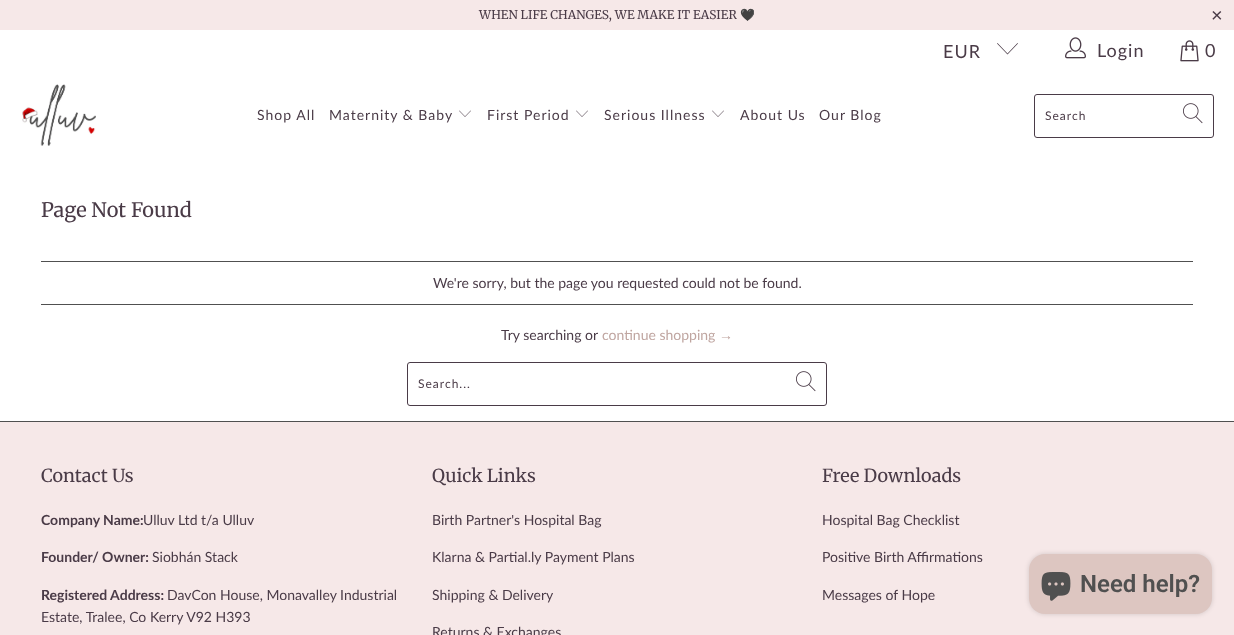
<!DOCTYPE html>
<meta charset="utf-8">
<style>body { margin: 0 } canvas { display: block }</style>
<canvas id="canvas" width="1234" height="635"></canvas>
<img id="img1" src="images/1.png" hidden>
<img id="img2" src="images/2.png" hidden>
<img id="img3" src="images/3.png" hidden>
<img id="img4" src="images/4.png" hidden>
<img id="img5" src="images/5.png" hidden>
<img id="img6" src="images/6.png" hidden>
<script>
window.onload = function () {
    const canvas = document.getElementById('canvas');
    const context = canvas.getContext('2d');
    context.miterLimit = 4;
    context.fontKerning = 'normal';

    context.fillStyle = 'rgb(255, 255, 255)';
    context.fillRect(0, 0, 1234, 635);
    context.fillStyle = 'rgb(246, 232, 232)';
    context.fillRect(0, 0, 1234, 30);
    context.fillStyle = 'rgb(74, 59, 71)';
    context.beginPath();
    context.moveTo(1007.5, 54.5);
    context.lineTo(997, 43.5);
    context.lineTo(997.5, 43);
    context.lineTo(1007.5, 53.5);
    context.lineTo(1017.5, 43);
    context.lineTo(1018, 43.5);
    context.closePath();
    context.fill();
    context.drawImage(document.getElementById('img1'), 1065, 37, 21, 22);
    context.drawImage(document.getElementById('img2'), 1180, 40, 19, 22);
    context.drawImage(document.getElementById('img3'), 22, 84, 74, 62);
    context.drawImage(document.getElementById('img4'), 459, 110, 12, 7);
    context.drawImage(document.getElementById('img4'), 576, 110, 12, 7);
    context.drawImage(document.getElementById('img4'), 712, 110, 12, 7);
    context.beginPath();
    context.roundRect(1034.5, 94.5, 179, 43, 2.5);
    context.strokeStyle = 'rgb(74, 59, 71)';
    context.stroke();
    context.drawImage(document.getElementById('img5'), 1183, 103, 20, 21);
    context.fillStyle = 'rgb(80, 80, 80)';
    context.fillRect(41, 261, 1152, 1);
    context.fillRect(41, 304, 1152, 1);
    context.beginPath();
    context.roundRect(407.5, 362.5, 419, 43, 2.5);
    context.stroke();
    context.drawImage(document.getElementById('img5'), 796, 371, 20, 21);
    context.fillStyle = 'rgb(246, 232, 232)';
    context.fillRect(0, 422, 1234, 213);
    context.fillStyle = 'rgb(80, 80, 80)';
    context.fillRect(0, 421, 1234, 1);
    context.fillStyle = 'rgba(0, 0, 0, 0.15)';
    context.filter = 'blur(2.5px)';
    context.beginPath();
    context.roundRect(1029, 554, 183, 60, 16);
    context.fill();
    context.filter = 'none';
    context.fillStyle = 'rgb(221, 198, 193)';
    context.beginPath();
    context.roundRect(1029, 554, 183, 60, 16);
    context.fill();
    context.drawImage(document.getElementById('img6'), 1041, 572, 30, 29);
    context.font = '12px Merriweather';
    context.fillStyle = 'rgb(74, 59, 71)';
    context.fillText('WHEN LIFE CHANGES, WE MAKE IT EASIER', 479, 19);
    context.font = '12px Noto Color Emoji';
    context.fillText('🖤', 740, 19);
    context.font = '20px Liberation Sans';
    context.fillText('×', 1211, 22);
    context.letterSpacing = '1px';
    context.font = '18px Lato';
    context.fillText('EUR', 943, 58);
    context.fillText('Login', 1097, 57);
    context.fillText('0', 1205, 57);
    context.font = '14px Lato';
    context.fillText('Shop All', 257, 120);
    context.fillText('Maternity & Baby', 329, 120);
    context.fillText('First Period', 487, 120);
    context.fillText('Serious Illness', 604, 120);
    context.fillText('About Us', 740, 120);
    context.fillText('Our Blog', 819, 120);
    context.font = '12px Lato';
    context.fillText('Search', 1045, 120);
    context.letterSpacing = '0px';
    context.font = '20px Merriweather';
    context.fillText('Page Not Found', 41, 217);
    context.font = '14px Lato';
    context.fillText('We\'re sorry, but the page you requested could not be found.', 433, 288);
    context.fillText('Try searching or', 501, 340);
    context.fillStyle = 'rgb(191, 165, 160)';
    context.fillText('continue shopping', 602, 340);
    context.font = '14px Liberation Sans';
    context.fillText('→', 719, 340);
    context.letterSpacing = '1px';
    context.font = '12px Lato';
    context.fillStyle = 'rgb(74, 59, 71)';
    context.fillText('Search...', 418, 388);
    context.letterSpacing = '0px';
    context.font = '18px Merriweather';
    context.fillText('Contact Us', 41, 482);
    context.font = 'bold 14px Lato';
    context.fillText('Company Name:', 41, 525);
    context.font = '14px Lato';
    context.fillText('Ulluv Ltd t/a Ulluv', 143, 525);
    context.font = 'bold 14px Lato';
    context.fillText('Founder/ Owner:', 41, 562);
    context.font = '14px Lato';
    context.fillText('Siobhán Stack', 152, 562);
    context.font = 'bold 14px Lato';
    context.fillText('Registered Address:', 41, 600);
    context.font = '14px Lato';
    context.fillText('DavCon House, Monavalley Industrial', 167, 600);
    context.fillText('Estate, Tralee, Co Kerry V92 H393', 41, 622);
    context.font = '18px Merriweather';
    context.fillText('Quick Links', 432, 482);
    context.font = '14px Lato';
    context.fillText('Birth Partner\'s Hospital Bag', 432, 525);
    context.fillText('Klarna & Partial.ly Payment Plans', 432, 562);
    context.fillText('Shipping & Delivery', 432, 600);
    context.fillText('Returns & Exchanges', 432, 637);
    context.font = '18px Merriweather';
    context.fillText('Free Downloads', 822, 482);
    context.font = '14px Lato';
    context.fillText('Hospital Bag Checklist', 822, 525);
    context.fillText('Positive Birth Affirmations', 822, 562);
    context.fillText('Messages of Hope', 822, 600);
    context.font = '600 24px Roboto';
    context.fillStyle = 'rgb(80, 80, 80)';
    context.fillText('Need help?', 1080, 592);
};
</script>
